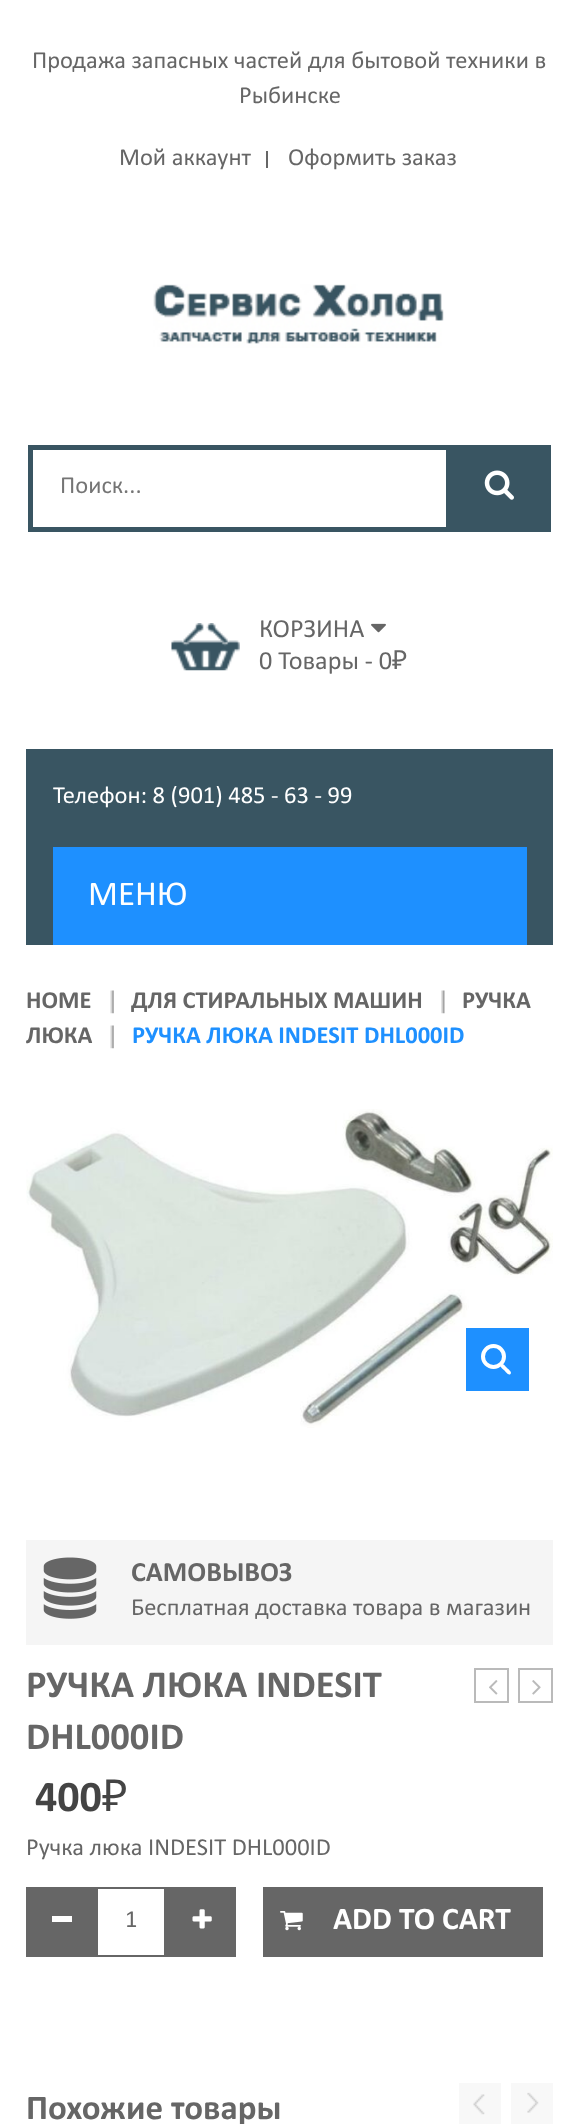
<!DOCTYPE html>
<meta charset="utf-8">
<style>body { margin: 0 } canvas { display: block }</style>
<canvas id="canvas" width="579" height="2124"></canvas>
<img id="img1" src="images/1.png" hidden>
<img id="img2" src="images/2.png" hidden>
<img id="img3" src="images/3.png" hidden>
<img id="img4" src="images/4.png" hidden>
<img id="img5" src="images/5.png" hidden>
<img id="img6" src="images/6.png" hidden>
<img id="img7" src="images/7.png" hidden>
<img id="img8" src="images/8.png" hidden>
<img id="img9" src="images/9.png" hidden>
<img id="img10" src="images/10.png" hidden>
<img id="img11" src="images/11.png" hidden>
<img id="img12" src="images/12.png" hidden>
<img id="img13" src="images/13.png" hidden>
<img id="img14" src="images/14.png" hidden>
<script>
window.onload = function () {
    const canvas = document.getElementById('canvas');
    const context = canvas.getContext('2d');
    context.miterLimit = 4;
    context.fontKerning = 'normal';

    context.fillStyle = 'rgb(255, 255, 255)';
    context.fillRect(0, 0, 579, 2124);
    context.fillStyle = 'rgb(102, 102, 102)';
    context.fillRect(266, 151, 2, 17);
    context.drawImage(document.getElementById('img1'), 153, 284, 291, 64);
    context.fillStyle = 'rgb(57, 85, 98)';
    context.fillRect(28, 445, 418, 5);
    context.fillRect(28, 527, 418, 5);
    context.fillRect(28, 445, 5, 87);
    context.fillRect(446, 445, 105, 87);
    context.drawImage(document.getElementById('img2'), 484, 470, 30, 30);
    context.drawImage(document.getElementById('img3'), 171, 623, 69, 48);
    context.drawImage(document.getElementById('img4'), 371, 623, 15, 10);
    context.fillRect(26, 749, 527, 196);
    context.fillStyle = 'rgb(30, 144, 255)';
    context.fillRect(53, 847, 474, 98);
    context.drawImage(document.getElementById('img5'), 110, 990, 4, 24);
    context.drawImage(document.getElementById('img6'), 441, 990, 4, 24);
    context.drawImage(document.getElementById('img5'), 110, 1025, 4, 24);
    context.drawImage(document.getElementById('img7'), 26, 1109, 527, 319);
    context.fillRect(466, 1328, 63, 63);
    context.beginPath();
    context.arc(493.5, 1356.5, 10.5, 0, 2 * Math.PI);
    context.strokeStyle = 'rgb(255, 255, 255)';
    context.lineWidth = 4;
    context.stroke();
    context.fillStyle = 'rgb(255, 255, 255)';
    context.beginPath();
    context.moveTo(501, 1364.5);
    context.bezierCurveTo(503, 1362.5, 506, 1367, 507, 1368);
    context.bezierCurveTo(508, 1369, 512.5, 1372, 510.5, 1374);
    context.bezierCurveTo(508.5, 1376, 505.5, 1371.5, 504.5, 1370.5);
    context.bezierCurveTo(503.5, 1369.5, 499, 1366.5, 501, 1364.5);
    context.closePath();
    context.fill();
    context.fillStyle = 'rgb(245, 245, 245)';
    context.fillRect(26, 1540, 527, 105);
    context.drawImage(document.getElementById('img8'), 43, 1557, 54, 62);
    context.strokeStyle = 'rgb(186, 186, 186)';
    context.lineWidth = 2;
    context.strokeRect(475, 1669, 33, 33);
    context.drawImage(document.getElementById('img9'), 489, 1680, 9, 15);
    context.strokeRect(519, 1669, 33, 33);
    context.drawImage(document.getElementById('img10'), 532, 1680, 9, 15);
    context.fillStyle = 'rgb(102, 102, 102)';
    context.fillRect(26, 1887, 70, 70);
    context.fillStyle = 'rgb(255, 255, 255)';
    context.fillRect(52, 1916, 20, 6);
    context.strokeStyle = 'rgb(102, 102, 102)';
    context.strokeRect(97, 1888, 68, 68);
    context.fillStyle = 'rgb(102, 102, 102)';
    context.fillRect(166, 1887, 70, 70);
    context.drawImage(document.getElementById('img11'), 192, 1909, 20, 20);
    context.fillRect(263, 1887, 280, 70);
    context.drawImage(document.getElementById('img12'), 280, 1911, 23, 20);
    context.fillStyle = 'rgb(248, 248, 248)';
    context.fillRect(459, 2083, 42, 41);
    context.drawImage(document.getElementById('img13'), 473, 2094, 12, 21);
    context.fillRect(511, 2083, 42, 41);
    context.drawImage(document.getElementById('img14'), 527, 2092, 12, 21);
    context.font = '24.5px Calibri';
    context.fillStyle = 'rgb(102, 102, 102)';
    context.fillText('Продажа запасных частей для бытовой техники в', 32, 68);
    context.fillText('Рыбинске', 239, 103);
    context.fillText('Мой аккаунт', 119, 165);
    context.fillText('Оформить заказ', 288, 165);
    context.fillStyle = 'rgb(117, 117, 117)';
    context.fillText('Поиск...', 60, 493);
    context.font = '26.25px Calibri';
    context.fillStyle = 'rgb(102, 102, 102)';
    context.fillText('КОРЗИНА', 259, 637);
    context.fillText('0 Товары - 0', 259, 669);
    context.font = '26.25px Noto Sans';
    context.fillText('₽', 392, 669);
    context.font = '24.5px Calibri';
    context.fillStyle = 'rgb(255, 255, 255)';
    context.fillText('Телефон: 8 (901) 485 - 63 - 99', 53, 803);
    context.font = '35px Calibri';
    context.fillText('МЕНЮ', 88, 905);
    context.font = 'bold 24.5px Calibri';
    context.fillStyle = 'rgb(102, 102, 102)';
    context.fillText('HOME', 26, 1008);
    context.fillText('ДЛЯ СТИРАЛЬНЫХ МАШИН', 131, 1008);
    context.fillText('РУЧКА', 462, 1008);
    context.fillText('ЛЮКА', 26, 1043);
    context.fillStyle = 'rgb(30, 144, 255)';
    context.fillText('РУЧКА ЛЮКА INDESIT DHL000ID', 132, 1043);
    context.font = 'bold 28px Calibri';
    context.fillStyle = 'rgb(102, 102, 102)';
    context.fillText('САМОВЫВОЗ', 131, 1581);
    context.font = '24.5px Calibri';
    context.fillText('Бесплатная доставка товара в магазин', 131, 1615);
    context.font = 'bold 38.5px Calibri';
    context.fillText('РУЧКА ЛЮКА INDESIT', 26, 1697);
    context.fillText('DHL000ID', 26, 1749);
    context.font = 'bold 44px Calibri';
    context.fillStyle = 'rgb(68, 68, 68)';
    context.fillText('400', 35, 1811);
    context.font = '44px Noto Sans';
    context.fillText('₽', 102, 1811);
    context.font = '24.5px Calibri';
    context.fillStyle = 'rgb(102, 102, 102)';
    context.fillText('Ручка люка INDESIT DHL000ID', 26, 1855);
    context.fillText('1', 125, 1927);
    context.font = 'bold 31.5px Calibri';
    context.fillStyle = 'rgb(255, 255, 255)';
    context.fillText('ADD TO CART', 333, 1929);
    context.font = 'bold 35px Calibri';
    context.fillStyle = 'rgb(102, 102, 102)';
    context.fillText('Похожие товары', 26, 2119);
};
</script>
